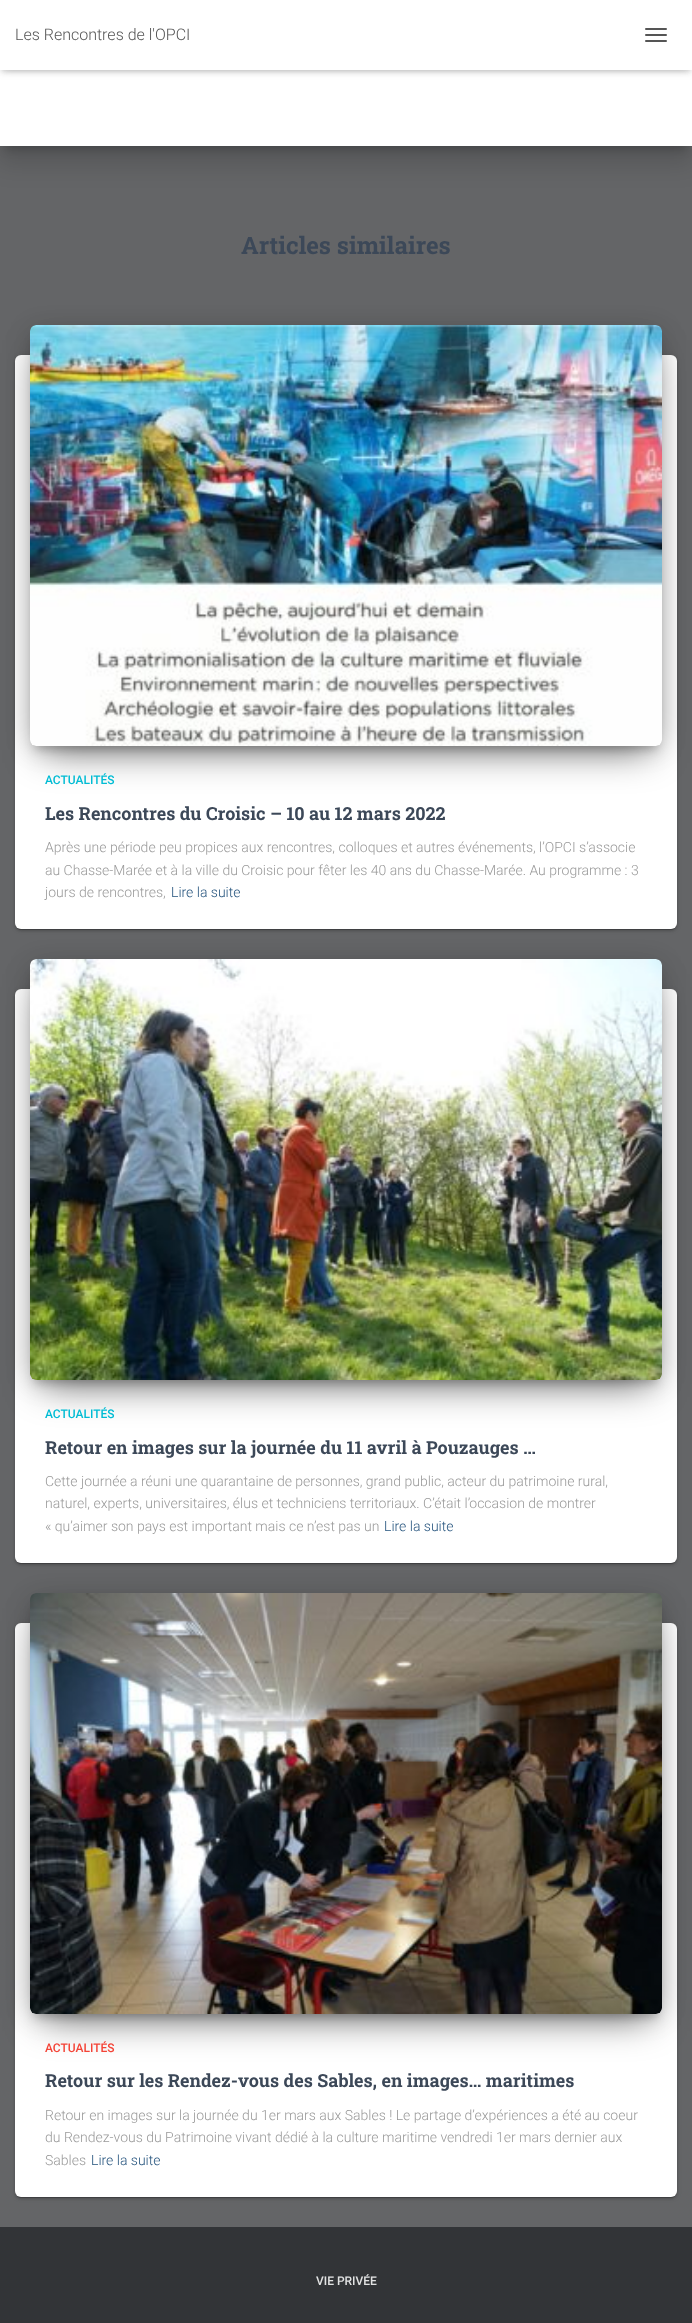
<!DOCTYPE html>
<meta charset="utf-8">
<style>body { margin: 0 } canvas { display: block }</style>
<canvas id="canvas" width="692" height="2323"></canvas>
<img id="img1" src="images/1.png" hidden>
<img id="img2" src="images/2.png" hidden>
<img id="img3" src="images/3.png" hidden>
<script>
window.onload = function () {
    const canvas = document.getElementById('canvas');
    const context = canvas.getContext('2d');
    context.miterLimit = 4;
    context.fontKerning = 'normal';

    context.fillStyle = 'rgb(100, 101, 103)';
    context.fillRect(0, 0, 692, 2323);
    context.fillStyle = 'rgba(0, 0, 0, 0.2)';
    context.filter = 'blur(5px)';
    context.beginPath();
    context.rect(5, -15, 682, 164);
    context.fill();
    context.filter = 'none';
    context.fillStyle = 'rgba(0, 0, 0, 0.14)';
    context.filter = 'blur(12px)';
    context.beginPath();
    context.rect(-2, -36, 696, 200);
    context.fill();
    context.filter = 'none';
    context.fillStyle = 'rgb(255, 255, 255)';
    context.fillRect(0, 70, 692, 76);
    context.fillStyle = 'rgba(0, 0, 0, 0.1)';
    context.filter = 'blur(2.5px)';
    context.beginPath();
    context.rect(2, 6, 688, 66);
    context.fill();
    context.filter = 'none';
    context.fillStyle = 'rgba(0, 0, 0, 0.12)';
    context.filter = 'blur(5px)';
    context.beginPath();
    context.rect(0, 1, 692, 70);
    context.fill();
    context.filter = 'none';
    context.fillStyle = 'rgba(0, 0, 0, 0.42)';
    context.filter = 'blur(5px)';
    context.beginPath();
    context.rect(6, 7, 680, 58);
    context.fill();
    context.filter = 'none';
    context.fillStyle = 'rgb(255, 255, 255)';
    context.fillRect(0, 0, 692, 70);
    context.fillStyle = 'rgb(85, 85, 85)';
    context.beginPath();
    context.roundRect(645, 28, 22, 2, 1);
    context.fill();
    context.beginPath();
    context.roundRect(645, 34, 22, 2, 1);
    context.fill();
    context.beginPath();
    context.roundRect(645, 40, 22, 2, 1);
    context.fill();
    context.fillStyle = 'rgba(0, 0, 0, 0.12)';
    context.filter = 'blur(2.5px)';
    context.beginPath();
    context.roundRect(15, 356, 662, 574, 6);
    context.fill();
    context.filter = 'none';
    context.fillStyle = 'rgba(0, 0, 0, 0.2)';
    context.filter = 'blur(0.5px)';
    context.beginPath();
    context.roundRect(17, 360, 658, 570, 4);
    context.fill();
    context.filter = 'none';
    context.fillStyle = 'rgba(0, 0, 0, 0.14)';
    context.filter = 'blur(1px)';
    context.beginPath();
    context.roundRect(15, 357, 662, 574, 6);
    context.fill();
    context.filter = 'none';
    context.fillStyle = 'rgb(255, 255, 255)';
    context.beginPath();
    context.roundRect(15, 355, 662, 574, 6);
    context.fill();
    context.fillStyle = 'rgba(0, 0, 0, 0.2)';
    context.filter = 'blur(5px)';
    context.beginPath();
    context.roundRect(35, 338, 622, 411, 1);
    context.fill();
    context.filter = 'none';
    context.fillStyle = 'rgba(0, 0, 0, 0.12)';
    context.filter = 'blur(12.5px)';
    context.beginPath();
    context.roundRect(30, 329, 632, 421, 6);
    context.fill();
    context.filter = 'none';
    context.fillStyle = 'rgba(0, 0, 0, 0.56)';
    context.filter = 'blur(19px)';
    context.beginPath();
    context.rect(42, 353, 608, 397);
    context.fill();
    context.filter = 'none';
    context.drawImage(document.getElementById('img1'), 30, 325, 632, 421);
    context.fillStyle = 'rgba(0, 0, 0, 0.12)';
    context.filter = 'blur(2.5px)';
    context.beginPath();
    context.roundRect(15, 990, 662, 574, 6);
    context.fill();
    context.filter = 'none';
    context.fillStyle = 'rgba(0, 0, 0, 0.2)';
    context.filter = 'blur(0.5px)';
    context.beginPath();
    context.roundRect(17, 994, 658, 570, 4);
    context.fill();
    context.filter = 'none';
    context.fillStyle = 'rgba(0, 0, 0, 0.14)';
    context.filter = 'blur(1px)';
    context.beginPath();
    context.roundRect(15, 991, 662, 574, 6);
    context.fill();
    context.filter = 'none';
    context.fillStyle = 'rgb(255, 255, 255)';
    context.beginPath();
    context.roundRect(15, 989, 662, 574, 6);
    context.fill();
    context.fillStyle = 'rgba(0, 0, 0, 0.2)';
    context.filter = 'blur(5px)';
    context.beginPath();
    context.roundRect(35, 972, 622, 411, 1);
    context.fill();
    context.filter = 'none';
    context.fillStyle = 'rgba(0, 0, 0, 0.12)';
    context.filter = 'blur(12.5px)';
    context.beginPath();
    context.roundRect(30, 963, 632, 421, 6);
    context.fill();
    context.filter = 'none';
    context.fillStyle = 'rgba(0, 0, 0, 0.56)';
    context.filter = 'blur(19px)';
    context.beginPath();
    context.rect(42, 987, 608, 397);
    context.fill();
    context.filter = 'none';
    context.drawImage(document.getElementById('img2'), 30, 959, 632, 421);
    context.fillStyle = 'rgba(0, 0, 0, 0.12)';
    context.filter = 'blur(2.5px)';
    context.beginPath();
    context.roundRect(15, 1624, 662, 574, 6);
    context.fill();
    context.filter = 'none';
    context.fillStyle = 'rgba(0, 0, 0, 0.2)';
    context.filter = 'blur(0.5px)';
    context.beginPath();
    context.roundRect(17, 1628, 658, 570, 4);
    context.fill();
    context.filter = 'none';
    context.fillStyle = 'rgba(0, 0, 0, 0.14)';
    context.filter = 'blur(1px)';
    context.beginPath();
    context.roundRect(15, 1625, 662, 574, 6);
    context.fill();
    context.filter = 'none';
    context.fillStyle = 'rgb(255, 255, 255)';
    context.beginPath();
    context.roundRect(15, 1623, 662, 574, 6);
    context.fill();
    context.fillStyle = 'rgba(0, 0, 0, 0.2)';
    context.filter = 'blur(5px)';
    context.beginPath();
    context.roundRect(35, 1606, 622, 411, 1);
    context.fill();
    context.filter = 'none';
    context.fillStyle = 'rgba(0, 0, 0, 0.12)';
    context.filter = 'blur(12.5px)';
    context.beginPath();
    context.roundRect(30, 1597, 632, 421, 6);
    context.fill();
    context.filter = 'none';
    context.fillStyle = 'rgba(0, 0, 0, 0.56)';
    context.filter = 'blur(19px)';
    context.beginPath();
    context.rect(42, 1621, 608, 397);
    context.fill();
    context.filter = 'none';
    context.drawImage(document.getElementById('img3'), 30, 1593, 632, 421);
    context.fillStyle = 'rgb(50, 52, 55)';
    context.fillRect(0, 2227, 692, 96);
    context.font = '300 16px Roboto';
    context.fillStyle = 'rgb(85, 85, 85)';
    context.fillText('Les Rencontres de l\'OPCI', 15, 40);
    context.font = 'bold 24px Roboto Slab';
    context.fillStyle = 'rgb(60, 72, 88)';
    context.fillText('Articles similaires', 241, 254);
    context.font = '500 12px Roboto';
    context.fillStyle = 'rgb(0, 188, 212)';
    context.fillText('ACTUALITÉS', 45, 784);
    context.font = 'bold 18px Roboto Slab';
    context.fillStyle = 'rgb(60, 72, 88)';
    context.fillText('Les Rencontres du Croisic – 10 au 12 mars 2022', 45, 820);
    context.font = '300 14px Roboto';
    context.fillStyle = 'rgb(153, 153, 153)';
    context.fillText('Après une période peu propices aux rencontres, colloques et autres événements, l’OPCI s’associe', 45, 852);
    context.fillText('au Chasse-Marée et à la ville du Croisic pour fêter les 40 ans du Chasse-Marée. Au programme : 3', 45, 875);
    context.fillText('jours de rencontres,', 45, 897);
    context.fillStyle = 'rgb(35, 82, 124)';
    context.fillText('Lire la suite', 171, 897);
    context.font = '500 12px Roboto';
    context.fillStyle = 'rgb(0, 188, 212)';
    context.fillText('ACTUALITÉS', 45, 1418);
    context.font = 'bold 18px Roboto Slab';
    context.fillStyle = 'rgb(60, 72, 88)';
    context.fillText('Retour en images sur la journée du 11 avril à Pouzauges …', 45, 1454);
    context.font = '300 14px Roboto';
    context.fillStyle = 'rgb(153, 153, 153)';
    context.fillText('Cette journée a réuni une quarantaine de personnes, grand public, acteur du patrimoine rural,', 45, 1486);
    context.fillText('naturel, experts, universitaires, élus et techniciens territoriaux. C’était l’occasion de montrer', 45, 1508);
    context.fillText('« qu’aimer son pays est important mais ce n’est pas un', 45, 1531);
    context.fillStyle = 'rgb(35, 82, 124)';
    context.fillText('Lire la suite', 384, 1531);
    context.font = '500 12px Roboto';
    context.fillStyle = 'rgb(244, 67, 54)';
    context.fillText('ACTUALITÉS', 45, 2052);
    context.font = 'bold 18px Roboto Slab';
    context.fillStyle = 'rgb(60, 72, 88)';
    context.fillText('Retour sur les Rendez-vous des Sables, en images… maritimes', 45, 2087);
    context.font = '300 14px Roboto';
    context.fillStyle = 'rgb(153, 153, 153)';
    context.fillText('Retour en images sur la journée du 1er mars aux Sables ! Le partage d’expériences a été au coeur', 45, 2120);
    context.fillText('du Rendez-vous du Patrimoine vivant dédié à la culture maritime vendredi 1er mars dernier aux', 45, 2142);
    context.fillText('Sables', 45, 2165);
    context.fillStyle = 'rgb(35, 82, 124)';
    context.fillText('Lire la suite', 91, 2165);
    context.font = '500 12px Roboto';
    context.fillStyle = 'rgb(226, 227, 227)';
    context.fillText('VIE PRIVÉE', 316, 2285);
};
</script>
